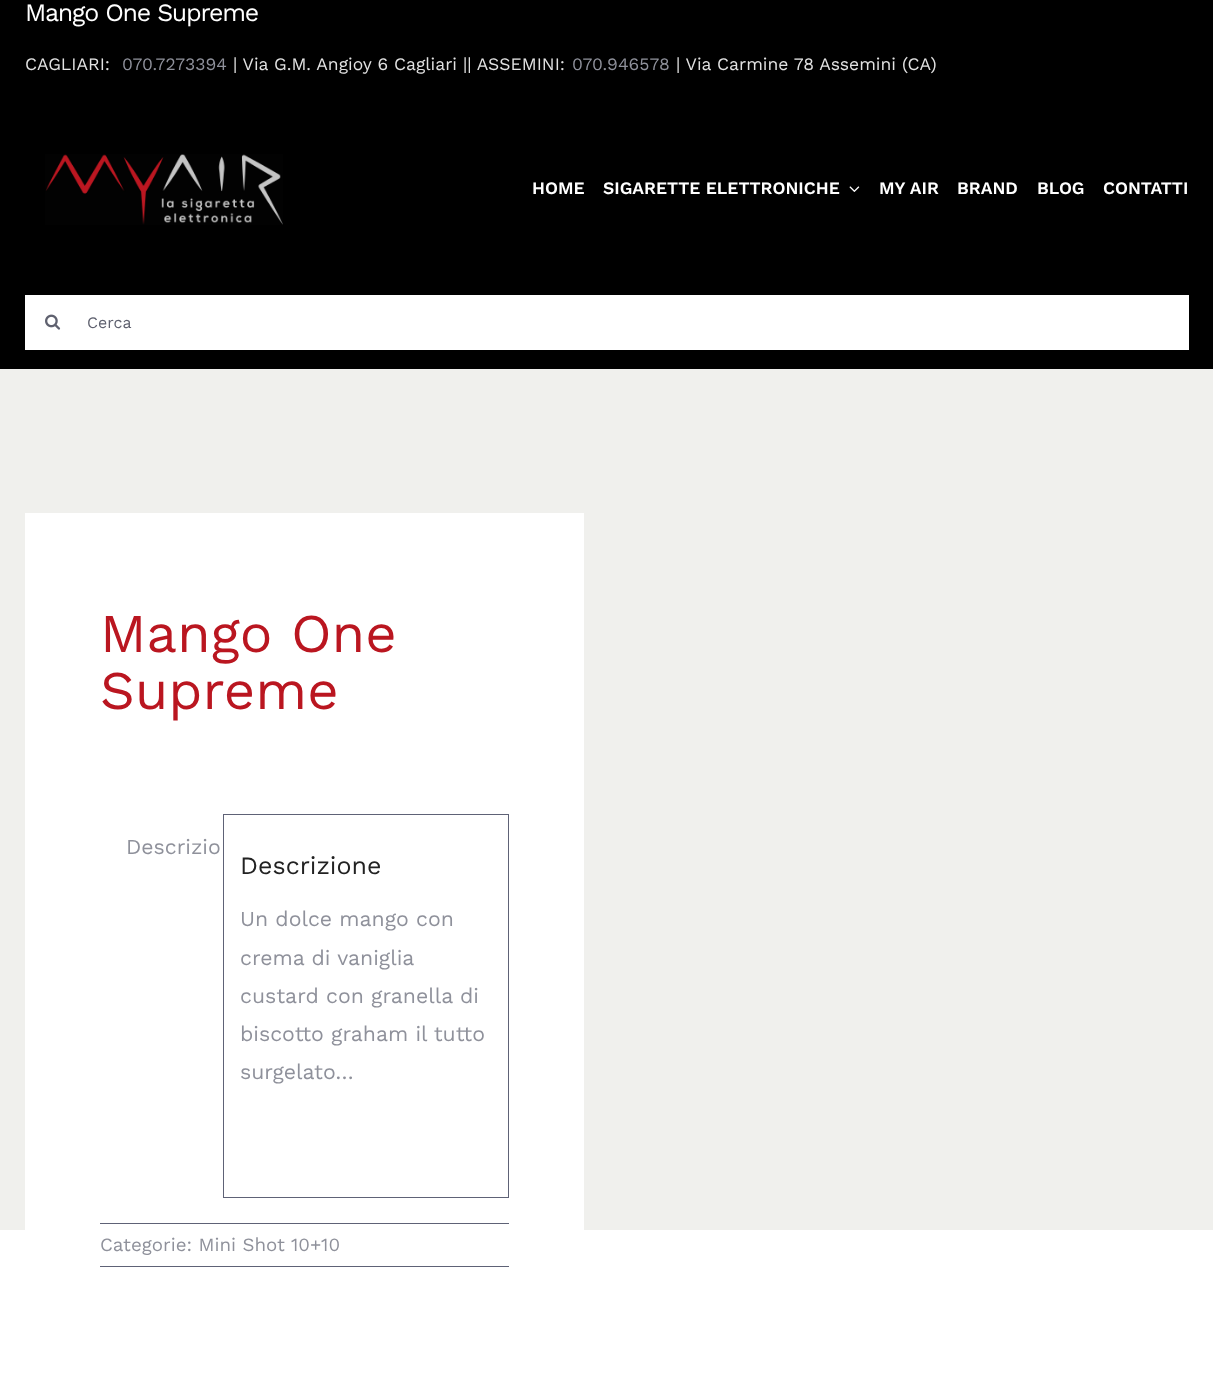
<!DOCTYPE html>
<meta charset="utf-8">
<style>body { margin: 0 } canvas { display: block }</style>
<canvas id="canvas" width="1213" height="1376"></canvas>
<img id="img1" src="images/1.png" hidden>
<img id="img2" src="images/2.png" hidden>
<img id="img3" src="images/3.png" hidden>
<script>
window.onload = function () {
    const canvas = document.getElementById('canvas');
    const context = canvas.getContext('2d');
    context.miterLimit = 4;
    context.fontKerning = 'normal';

    context.fillStyle = 'rgb(255, 255, 255)';
    context.fillRect(0, 0, 1213, 1376);
    context.fillStyle = 'rgb(0, 0, 0)';
    context.fillRect(0, 0, 1213, 369);
    context.drawImage(document.getElementById('img1'), 45, 154, 238, 71);
    context.drawImage(document.getElementById('img2'), 849, 186, 11, 6);
    context.fillStyle = 'rgb(255, 255, 255)';
    context.fillRect(25, 295, 1164, 55);
    context.drawImage(document.getElementById('img3'), 45, 314, 16, 16);
    context.fillStyle = 'rgb(240, 240, 237)';
    context.fillRect(0, 369, 1213, 861);
    context.fillStyle = 'rgb(255, 255, 255)';
    context.fillRect(25, 513, 559, 717);
    context.strokeStyle = 'rgb(94, 98, 118)';
    context.strokeRect(223.5, 814.5, 285, 383);
    context.fillStyle = 'rgb(94, 98, 118)';
    context.fillRect(100, 1223, 409, 1);
    context.fillRect(100, 1266, 409, 1);
    context.letterSpacing = '-1.25px';
    context.font = '25px Work Sans';
    context.fillStyle = 'rgb(255, 255, 255)';
    context.fillText('Mango One Supreme', 25, 21);
    context.letterSpacing = '0px';
    context.font = '17.5px Work Sans';
    context.fillStyle = 'rgb(226, 226, 226)';
    context.fillText('CAGLIARI:', 25, 70);
    context.fillStyle = 'rgb(143, 145, 155)';
    context.fillText('070.7273394', 122, 70);
    context.fillStyle = 'rgb(226, 226, 226)';
    context.fillText('| Via G.M. Angioy 6 Cagliari || ASSEMINI:', 233, 70);
    context.fillStyle = 'rgb(143, 145, 155)';
    context.fillText('070.946578', 572, 70);
    context.fillStyle = 'rgb(226, 226, 226)';
    context.fillText('| Via Carmine 78 Assemini (CA)', 676, 70);
    context.font = '600 17.5px Work Sans';
    context.fillStyle = 'rgb(255, 255, 255)';
    context.fillText('HOME', 532, 194);
    context.fillText('SIGARETTE ELETTRONICHE', 603, 194);
    context.fillText('MY AIR', 879, 194);
    context.fillText('BRAND', 957, 194);
    context.fillText('BLOG', 1037, 194);
    context.fillText('CONTATTI', 1103, 194);
    context.font = '16px Work Sans';
    context.fillStyle = 'rgb(95, 97, 111)';
    context.fillText('Cerca', 87, 328);
    context.font = '54.5px Work Sans';
    context.fillStyle = 'rgb(186, 22, 32)';
    context.fillText('Mango One', 100, 652);
    context.fillText('Supreme', 100, 709);
    context.font = '21.25px Work Sans';
    context.fillStyle = 'rgb(143, 145, 155)';
    context.fillText('Descrizio', 126, 854);
    context.font = '25px Work Sans';
    context.fillStyle = 'rgb(34, 34, 34)';
    context.fillText('Descrizione', 240, 874);
    context.font = '21.25px Work Sans';
    context.fillStyle = 'rgb(143, 145, 155)';
    context.fillText('Un dolce mango con', 240, 926);
    context.fillText('crema di vaniglia', 240, 965);
    context.fillText('custard con granella di', 240, 1003);
    context.fillText('biscotto graham il tutto', 240, 1041);
    context.fillText('surgelato…', 240, 1079);
    context.font = '18.75px Work Sans';
    context.fillText('Categorie: Mini Shot 10+10', 100, 1251);
};
</script>
